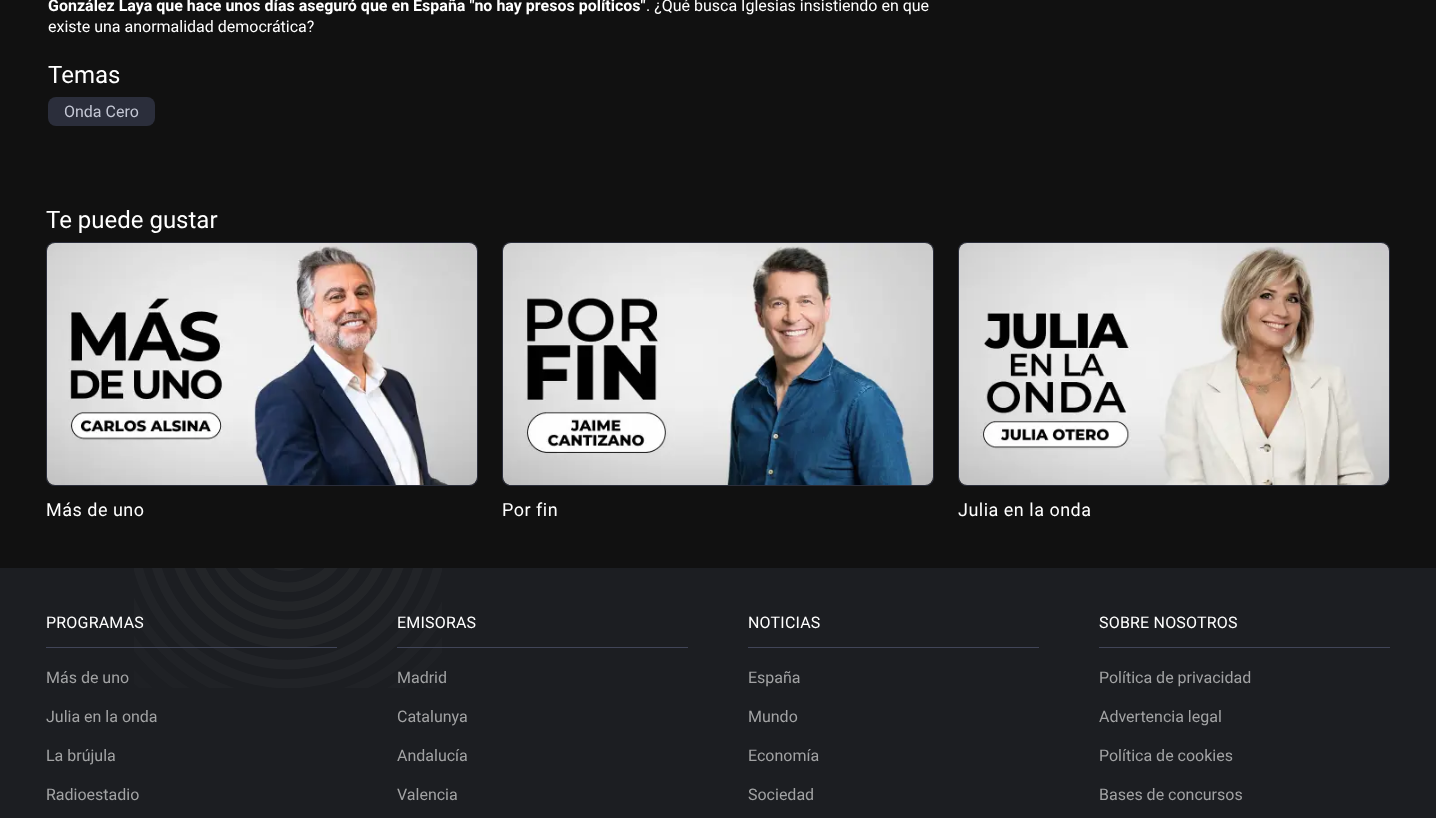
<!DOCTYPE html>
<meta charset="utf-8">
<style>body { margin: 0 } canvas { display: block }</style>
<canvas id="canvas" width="1436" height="818"></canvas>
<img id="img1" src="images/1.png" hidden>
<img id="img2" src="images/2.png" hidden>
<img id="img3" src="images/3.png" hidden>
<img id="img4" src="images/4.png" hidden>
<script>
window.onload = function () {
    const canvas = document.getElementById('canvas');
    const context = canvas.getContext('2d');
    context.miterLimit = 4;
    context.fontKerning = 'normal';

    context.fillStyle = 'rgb(28, 30, 34)';
    context.fillRect(0, 0, 1436, 818);
    context.fillStyle = 'rgb(17, 17, 17)';
    context.fillRect(0, 0, 1436, 568);
    context.fillStyle = 'rgb(43, 46, 59)';
    context.beginPath();
    context.roundRect(48, 97, 107, 29, 8);
    context.fill();
    context.beginPath();
    context.roundRect(46.5, 242.5, 431, 243, 7.5);
    context.strokeStyle = 'rgb(43, 46, 59)';
    context.stroke();
    context.drawImage(document.getElementById('img1'), 47, 243, 430, 242);
    context.beginPath();
    context.roundRect(502.5, 242.5, 431, 243, 7.5);
    context.stroke();
    context.drawImage(document.getElementById('img2'), 503, 243, 430, 242);
    context.beginPath();
    context.roundRect(958.5, 242.5, 431, 243, 7.5);
    context.stroke();
    context.drawImage(document.getElementById('img3'), 959, 243, 430, 242);
    context.drawImage(document.getElementById('img4'), 134, 568, 308, 120);
    context.fillStyle = 'rgb(65, 69, 88)';
    context.fillRect(46, 647, 291, 1);
    context.fillRect(397, 647, 291, 1);
    context.fillRect(748, 647, 291, 1);
    context.fillRect(1099, 647, 291, 1);
    context.font = 'bold 16px Roboto';
    context.fillStyle = 'rgb(255, 255, 255)';
    context.fillText('González Laya que hace unos días aseguró que en España "no hay presos políticos"', 48, 11);
    context.font = '16px Roboto';
    context.fillText('. ¿Qué busca Iglesias insistiendo en que', 646, 11);
    context.fillText('existe una anormalidad democrática?', 48, 32);
    context.font = '24px Roboto';
    context.fillText('Temas', 48, 83);
    context.font = '16px Roboto';
    context.fillStyle = 'rgb(196, 199, 212)';
    context.fillText('Onda Cero', 64, 117);
    context.font = '24px Roboto';
    context.fillStyle = 'rgb(255, 255, 255)';
    context.fillText('Te puede gustar', 46, 228);
    context.letterSpacing = '0.5px';
    context.font = '18px Roboto';
    context.fillText('Más de uno', 46, 516);
    context.fillText('Por fin', 502, 516);
    context.fillText('Julia en la onda', 958, 516);
    context.letterSpacing = '0.2px';
    context.font = '16px Roboto';
    context.fillText('PROGRAMAS', 46, 628);
    context.letterSpacing = '0px';
    context.fillStyle = 'rgb(162, 163, 164)';
    context.fillText('Más de uno', 46, 683);
    context.fillText('Julia en la onda', 46, 722);
    context.fillText('La brújula', 46, 761);
    context.fillText('Radioestadio', 46, 800);
    context.letterSpacing = '0.2px';
    context.fillStyle = 'rgb(255, 255, 255)';
    context.fillText('EMISORAS', 397, 628);
    context.letterSpacing = '0px';
    context.fillStyle = 'rgb(162, 163, 164)';
    context.fillText('Madrid', 397, 683);
    context.fillText('Catalunya', 397, 722);
    context.fillText('Andalucía', 397, 761);
    context.fillText('Valencia', 397, 800);
    context.letterSpacing = '0.2px';
    context.fillStyle = 'rgb(255, 255, 255)';
    context.fillText('NOTICIAS', 748, 628);
    context.letterSpacing = '0px';
    context.fillStyle = 'rgb(162, 163, 164)';
    context.fillText('España', 748, 683);
    context.fillText('Mundo', 748, 722);
    context.fillText('Economía', 748, 761);
    context.fillText('Sociedad', 748, 800);
    context.letterSpacing = '0.2px';
    context.fillStyle = 'rgb(255, 255, 255)';
    context.fillText('SOBRE NOSOTROS', 1099, 628);
    context.letterSpacing = '0px';
    context.fillStyle = 'rgb(162, 163, 164)';
    context.fillText('Política de privacidad', 1099, 683);
    context.fillText('Advertencia legal', 1099, 722);
    context.fillText('Política de cookies', 1099, 761);
    context.fillText('Bases de concursos', 1099, 800);
};
</script>
